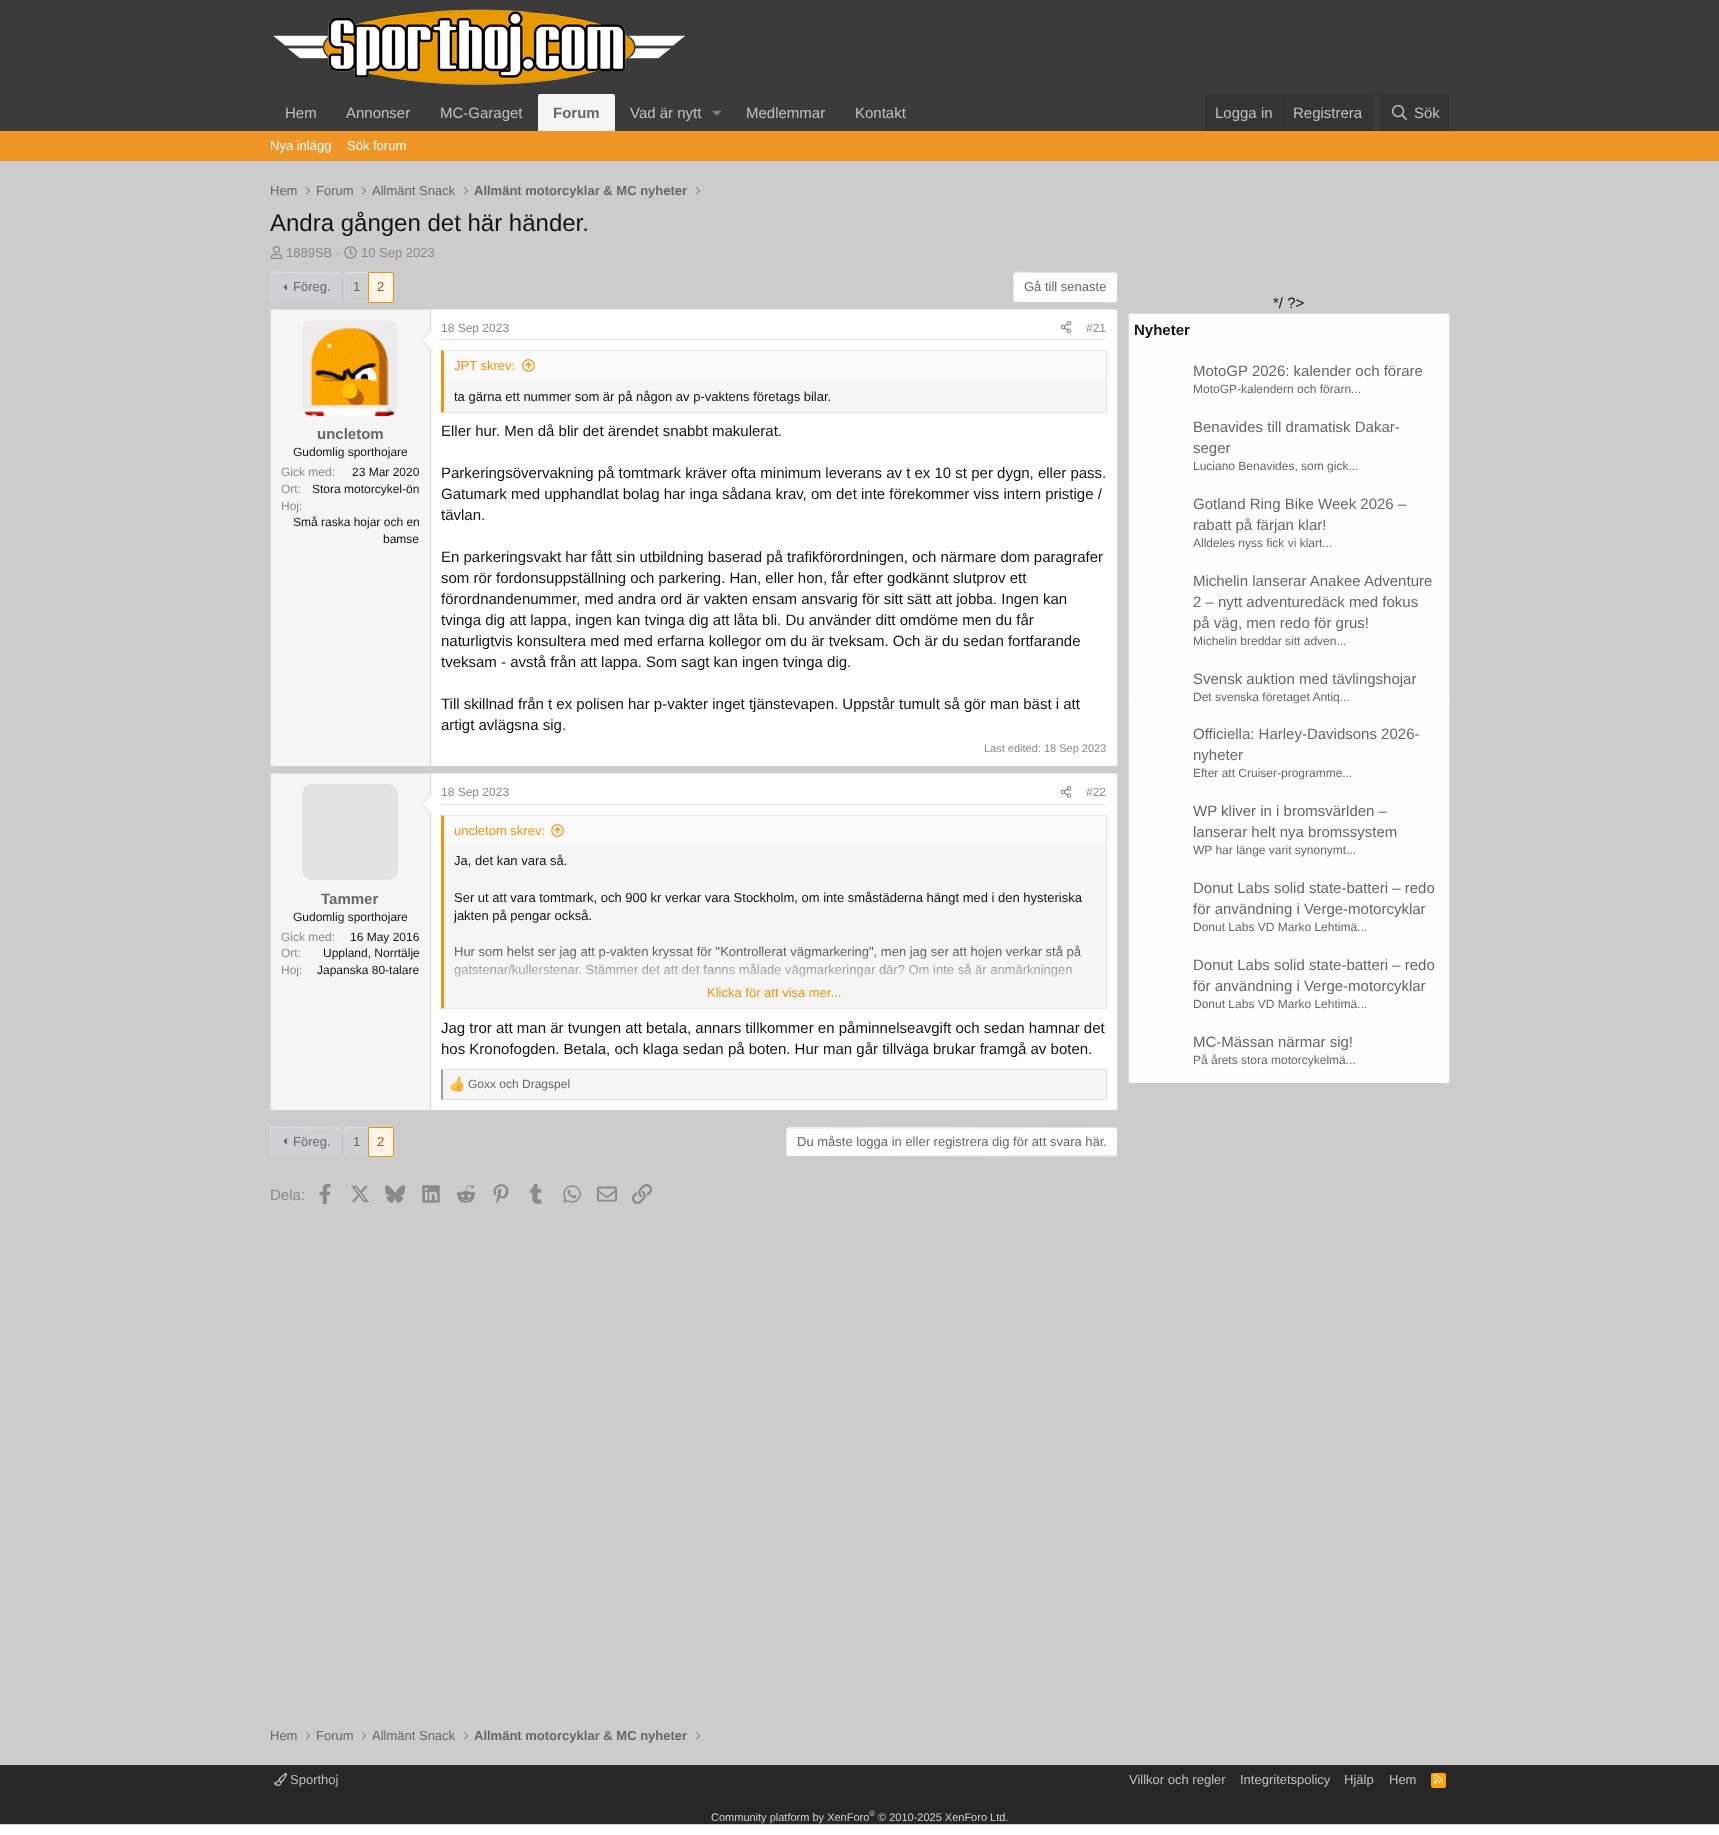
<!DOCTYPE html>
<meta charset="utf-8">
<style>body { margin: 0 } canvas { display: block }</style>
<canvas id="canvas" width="1719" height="1835"></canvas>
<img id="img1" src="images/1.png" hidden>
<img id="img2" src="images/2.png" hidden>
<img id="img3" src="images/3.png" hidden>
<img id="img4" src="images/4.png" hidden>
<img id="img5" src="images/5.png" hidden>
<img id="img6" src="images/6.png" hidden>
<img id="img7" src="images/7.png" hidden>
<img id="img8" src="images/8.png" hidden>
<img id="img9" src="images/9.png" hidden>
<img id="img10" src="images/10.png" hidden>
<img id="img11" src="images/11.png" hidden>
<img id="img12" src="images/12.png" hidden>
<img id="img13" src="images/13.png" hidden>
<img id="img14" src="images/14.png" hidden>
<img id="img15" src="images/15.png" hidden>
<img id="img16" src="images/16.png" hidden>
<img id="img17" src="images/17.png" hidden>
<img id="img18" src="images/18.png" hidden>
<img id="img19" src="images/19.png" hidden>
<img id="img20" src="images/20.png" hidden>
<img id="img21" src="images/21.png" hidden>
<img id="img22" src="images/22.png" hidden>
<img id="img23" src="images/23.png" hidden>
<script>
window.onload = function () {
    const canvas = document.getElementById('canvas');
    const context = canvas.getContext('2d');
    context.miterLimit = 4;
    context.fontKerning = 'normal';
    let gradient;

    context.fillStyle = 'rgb(204, 204, 204)';
    context.fillRect(0, 0, 1719, 1835);
    context.fillStyle = 'rgb(59, 59, 59)';
    context.fillRect(0, 0, 1719, 94);
    context.drawImage(document.getElementById('img1'), 273, 9, 412, 76);
    context.fillRect(0, 94, 1719, 37);
    context.fillStyle = 'rgb(245, 245, 245)';
    context.beginPath();
    context.roundRect(538, 94, 77, 37, [2, 2, 0, 0]);
    context.fill();
    context.drawImage(document.getElementById('img2'), 712, 110, 9, 6);
    context.fillStyle = 'rgb(53, 53, 53)';
    context.beginPath();
    context.roundRect(1205, 94, 168, 37, [4, 4, 0, 0]);
    context.fill();
    context.fillStyle = 'rgb(48, 48, 48)';
    context.fillRect(1282, 94, 1, 37);
    context.fillStyle = 'rgb(53, 53, 53)';
    context.beginPath();
    context.roundRect(1380, 94, 69, 37, [4, 4, 0, 0]);
    context.fill();
    context.drawImage(document.getElementById('img3'), 1392, 105, 15, 15);
    context.fillStyle = 'rgb(239, 150, 39)';
    context.fillRect(0, 131, 1719, 30);
    context.drawImage(document.getElementById('img4'), 306, 187, 4, 8);
    context.drawImage(document.getElementById('img4'), 362, 187, 4, 8);
    context.drawImage(document.getElementById('img4'), 464, 187, 4, 8);
    context.drawImage(document.getElementById('img4'), 696, 187, 4, 8);
    context.drawImage(document.getElementById('img5'), 270, 246, 13, 13);
    context.drawImage(document.getElementById('img6'), 344, 246, 13, 13);
    context.fillStyle = 'rgb(207, 208, 209)';
    context.beginPath();
    context.roundRect(270, 272, 70, 31, 2);
    context.fill();
    context.beginPath();
    context.moveTo(271, 273);
    context.bezierCurveTo(274, 270, 279, 272.5, 283, 272.5);
    context.lineTo(339, 273);
    context.strokeStyle = 'rgb(224, 224, 224)';
    context.stroke();
    context.beginPath();
    context.moveTo(339, 273);
    context.lineTo(339.5, 274);
    context.lineTo(339.5, 301);
    context.lineTo(339, 302);
    context.strokeStyle = 'rgb(214, 214, 214)';
    context.stroke();
    context.beginPath();
    context.moveTo(339, 302);
    context.lineTo(283, 302.5);
    context.bezierCurveTo(279, 302.5, 274, 305, 271, 302);
    context.strokeStyle = 'rgb(204, 204, 204)';
    context.stroke();
    context.beginPath();
    context.moveTo(271, 302);
    context.lineTo(270.5, 301);
    context.lineTo(270.5, 274);
    context.lineTo(271, 273);
    context.strokeStyle = 'rgb(214, 214, 214)';
    context.stroke();
    context.drawImage(document.getElementById('img7'), 283, 284, 4, 7);
    context.beginPath();
    context.roundRect(344, 272, 24, 31, [2, 0, 0, 2]);
    context.fill();
    context.fillStyle = 'rgb(224, 224, 224)';
    context.beginPath();
    context.moveTo(346, 272);
    context.lineTo(344.5, 272.5);
    context.lineTo(345.5, 273.5);
    context.bezierCurveTo(346, 272.5, 365.5, 273, 368, 273);
    context.lineTo(368, 272);
    context.closePath();
    context.fill();
    context.fillStyle = 'rgb(204, 204, 204)';
    context.beginPath();
    context.moveTo(368, 303);
    context.bezierCurveTo(365, 303, 346, 303.5, 345, 302);
    context.lineTo(345.5, 301.5);
    context.bezierCurveTo(346, 302.5, 365.5, 302, 368, 302);
    context.closePath();
    context.fill();
    context.fillStyle = 'rgb(214, 214, 214)';
    context.beginPath();
    context.moveTo(344, 273.5);
    context.lineTo(344, 301.5);
    context.lineTo(345, 302);
    context.lineTo(345.5, 301.5);
    context.lineTo(345, 301);
    context.lineTo(345, 274);
    context.lineTo(345.5, 273.5);
    context.lineTo(344.5, 272.5);
    context.closePath();
    context.fill();
    context.fillStyle = 'rgb(254, 244, 231)';
    context.beginPath();
    context.roundRect(368.5, 272.5, 25, 30, [0, 1.5, 1.5, 0]);
    context.fill();
    context.strokeStyle = 'rgb(242, 147, 13)';
    context.stroke();
    context.fillStyle = 'rgb(255, 255, 255)';
    context.beginPath();
    context.roundRect(1013, 272, 105, 31, 4);
    context.fill();
    context.beginPath();
    context.moveTo(1116.5, 273.5);
    context.bezierCurveTo(1118.5, 276, 1117.5, 284.5, 1117.5, 287.5);
    context.bezierCurveTo(1117.5, 306.5, 1119.5, 302.5, 1098, 302.5);
    context.lineTo(1017, 302.5);
    context.lineTo(1014.5, 301.5);
    context.strokeStyle = 'rgb(201, 201, 201)';
    context.stroke();
    context.beginPath();
    context.moveTo(1014.5, 301.5);
    context.bezierCurveTo(1012.5, 299, 1013.5, 290.5, 1013.5, 287.5);
    context.bezierCurveTo(1013.5, 268.5, 1011.5, 272.5, 1033, 272.5);
    context.lineTo(1114, 272.5);
    context.lineTo(1116.5, 273.5);
    context.strokeStyle = 'rgb(227, 227, 227)';
    context.stroke();
    context.beginPath();
    context.roundRect(270, 309, 848, 458, 4);
    context.fill();
    context.beginPath();
    context.moveTo(271.5, 310.5);
    context.lineTo(274, 309.5);
    context.lineTo(1114, 309.5);
    context.lineTo(1116.5, 310.5);
    context.strokeStyle = 'rgb(224, 224, 224)';
    context.stroke();
    context.beginPath();
    context.moveTo(1116.5, 310.5);
    context.lineTo(1117.5, 313);
    context.lineTo(1117.5, 763);
    context.lineTo(1116.5, 765.5);
    context.strokeStyle = 'rgb(214, 214, 214)';
    context.stroke();
    context.beginPath();
    context.moveTo(1116.5, 765.5);
    context.lineTo(1114, 766.5);
    context.lineTo(274, 766.5);
    context.lineTo(271.5, 765.5);
    context.strokeStyle = 'rgb(204, 204, 204)';
    context.stroke();
    context.beginPath();
    context.moveTo(271.5, 765.5);
    context.lineTo(270.5, 763);
    context.lineTo(270.5, 313);
    context.lineTo(271.5, 310.5);
    context.strokeStyle = 'rgb(214, 214, 214)';
    context.stroke();
    context.fillStyle = 'rgb(245, 245, 245)';
    context.beginPath();
    context.roundRect(271, 310, 160, 456, [3, 0, 0, 3]);
    context.fill();
    context.fillStyle = 'rgb(214, 214, 214)';
    context.fillRect(430, 310, 1, 456);
    context.fillStyle = 'rgb(255, 255, 255)';
    context.beginPath();
    context.roundRect(302, 320, 96, 96, 10);
    context.fill();
    context.drawImage(document.getElementById('img8'), 302, 320, 96, 96);
    context.fillStyle = 'rgb(214, 214, 214)';
    context.beginPath();
    context.moveTo(431, 330);
    context.lineTo(431, 350);
    context.lineTo(421, 340);
    context.closePath();
    context.fill();
    context.fillStyle = 'rgb(255, 255, 255)';
    context.beginPath();
    context.moveTo(431, 331);
    context.lineTo(431, 349);
    context.lineTo(422, 340);
    context.closePath();
    context.fill();
    context.fillStyle = 'rgb(229, 229, 229)';
    context.fillRect(441, 339, 666, 1);
    context.drawImage(document.getElementById('img9'), 1060, 321, 12, 12);
    context.fillStyle = 'rgb(245, 245, 245)';
    context.fillRect(444, 382, 662, 30);
    context.fillStyle = 'rgb(229, 229, 229)';
    context.beginPath();
    context.moveTo(441, 350);
    context.lineTo(1107, 350);
    context.lineTo(1106, 351);
    context.lineTo(444, 351);
    context.closePath();
    context.fill();
    context.fillRect(1106, 350, 1, 63);
    context.beginPath();
    context.moveTo(1107, 413);
    context.lineTo(441, 413);
    context.lineTo(444, 412);
    context.lineTo(1106, 412);
    context.closePath();
    context.fill();
    context.fillStyle = 'rgb(242, 147, 13)';
    context.beginPath();
    context.moveTo(441, 413);
    context.lineTo(441, 350);
    context.lineTo(444, 351);
    context.lineTo(444, 412);
    context.closePath();
    context.fill();
    context.fillStyle = 'rgb(250, 250, 250)';
    context.fillRect(444, 351, 662, 31);
    context.drawImage(document.getElementById('img10'), 522, 359, 13, 13);
    context.fillStyle = 'rgb(255, 255, 255)';
    context.beginPath();
    context.roundRect(270, 773, 848, 338, 4);
    context.fill();
    context.beginPath();
    context.moveTo(271.5, 774.5);
    context.lineTo(274, 773.5);
    context.lineTo(1114, 773.5);
    context.lineTo(1116.5, 774.5);
    context.strokeStyle = 'rgb(224, 224, 224)';
    context.stroke();
    context.beginPath();
    context.moveTo(1116.5, 774.5);
    context.bezierCurveTo(1117, 775, 1117.5, 776, 1117.5, 777);
    context.lineTo(1117.5, 1107);
    context.bezierCurveTo(1117.5, 1108, 1117, 1109, 1116.5, 1109.5);
    context.strokeStyle = 'rgb(214, 214, 214)';
    context.stroke();
    context.beginPath();
    context.moveTo(1116.5, 1109.5);
    context.lineTo(1114, 1110.5);
    context.lineTo(274, 1110.5);
    context.lineTo(271.5, 1109.5);
    context.strokeStyle = 'rgb(204, 204, 204)';
    context.stroke();
    context.beginPath();
    context.moveTo(271.5, 1109.5);
    context.bezierCurveTo(271, 1109, 270.5, 1108, 270.5, 1107);
    context.lineTo(270.5, 777);
    context.bezierCurveTo(270.5, 776, 271, 775, 271.5, 774.5);
    context.strokeStyle = 'rgb(214, 214, 214)';
    context.stroke();
    context.fillStyle = 'rgb(245, 245, 245)';
    context.beginPath();
    context.roundRect(271, 774, 160, 336, [3, 0, 0, 3]);
    context.fill();
    context.fillStyle = 'rgb(214, 214, 214)';
    context.fillRect(430, 774, 1, 336);
    context.fillStyle = 'rgb(226, 226, 226)';
    context.beginPath();
    context.roundRect(302, 784, 96, 96, 10);
    context.fill();
    context.fillStyle = 'rgb(214, 214, 214)';
    context.beginPath();
    context.moveTo(431, 794);
    context.lineTo(431, 814);
    context.lineTo(421, 804);
    context.closePath();
    context.fill();
    context.fillStyle = 'rgb(255, 255, 255)';
    context.beginPath();
    context.moveTo(431, 795);
    context.lineTo(431, 813);
    context.lineTo(422, 804);
    context.closePath();
    context.fill();
    context.fillStyle = 'rgb(229, 229, 229)';
    context.fillRect(441, 804, 666, 1);
    context.drawImage(document.getElementById('img9'), 1060, 786, 12, 12);
    context.fillStyle = 'rgb(245, 245, 245)';
    context.fillRect(444, 846, 662, 147);
    context.fillStyle = 'rgb(229, 229, 229)';
    context.beginPath();
    context.moveTo(441, 815);
    context.lineTo(1107, 815);
    context.lineTo(1106, 816);
    context.lineTo(444, 816);
    context.closePath();
    context.fill();
    context.fillRect(1106, 815, 1, 194);
    context.beginPath();
    context.moveTo(1107, 1009);
    context.lineTo(441, 1009);
    context.lineTo(444, 1008);
    context.lineTo(1106, 1008);
    context.closePath();
    context.fill();
    context.fillStyle = 'rgb(242, 147, 13)';
    context.beginPath();
    context.moveTo(441, 1009);
    context.lineTo(441, 815);
    context.lineTo(444, 816);
    context.lineTo(444, 1008);
    context.closePath();
    context.fill();
    context.fillStyle = 'rgb(250, 250, 250)';
    context.fillRect(444, 816, 662, 30);
    context.drawImage(document.getElementById('img10'), 551, 824, 13, 13);
    context.fillStyle = 'rgb(245, 245, 245)';
    context.fillRect(443, 1070, 663, 29);
    context.fillStyle = 'rgb(224, 224, 224)';
    context.beginPath();
    context.moveTo(441, 1069);
    context.lineTo(1107, 1069);
    context.lineTo(1106, 1070);
    context.lineTo(443, 1070);
    context.closePath();
    context.fill();
    context.fillRect(1106, 1069, 1, 31);
    context.beginPath();
    context.moveTo(1107, 1100);
    context.lineTo(441, 1100);
    context.lineTo(443, 1099);
    context.lineTo(1106, 1099);
    context.closePath();
    context.fill();
    context.fillStyle = 'rgb(159, 158, 157)';
    context.beginPath();
    context.moveTo(441, 1100);
    context.lineTo(441, 1069);
    context.lineTo(443, 1070);
    context.lineTo(443, 1099);
    context.closePath();
    context.fill();
    context.drawImage(document.getElementById('img11'), 450, 1076, 14, 16);
    context.fillStyle = 'rgb(207, 208, 209)';
    context.beginPath();
    context.roundRect(270, 1127, 70, 30, 2);
    context.fill();
    context.beginPath();
    context.moveTo(271, 1128);
    context.bezierCurveTo(274, 1125, 279, 1127.5, 283, 1127.5);
    context.lineTo(339, 1128);
    context.strokeStyle = 'rgb(224, 224, 224)';
    context.stroke();
    context.beginPath();
    context.moveTo(339, 1128);
    context.lineTo(339.5, 1129);
    context.lineTo(339.5, 1155);
    context.lineTo(339, 1156);
    context.strokeStyle = 'rgb(214, 214, 214)';
    context.stroke();
    context.beginPath();
    context.moveTo(339, 1156);
    context.lineTo(283, 1156.5);
    context.bezierCurveTo(279, 1156.5, 274, 1159, 271, 1156);
    context.strokeStyle = 'rgb(204, 204, 204)';
    context.stroke();
    context.beginPath();
    context.moveTo(271, 1156);
    context.lineTo(270.5, 1155);
    context.lineTo(270.5, 1129);
    context.lineTo(271, 1128);
    context.strokeStyle = 'rgb(214, 214, 214)';
    context.stroke();
    context.drawImage(document.getElementById('img7'), 283, 1138, 4, 7);
    context.beginPath();
    context.roundRect(344, 1127, 24, 30, [2, 0, 0, 2]);
    context.fill();
    context.fillStyle = 'rgb(224, 224, 224)';
    context.beginPath();
    context.moveTo(346, 1127);
    context.lineTo(344.5, 1127.5);
    context.lineTo(345.5, 1128.5);
    context.bezierCurveTo(346, 1127.5, 365.5, 1128, 368, 1128);
    context.lineTo(368, 1127);
    context.closePath();
    context.fill();
    context.fillStyle = 'rgb(204, 204, 204)';
    context.beginPath();
    context.moveTo(368, 1157);
    context.bezierCurveTo(365, 1157, 346, 1157.5, 345, 1156);
    context.lineTo(345.5, 1155.5);
    context.bezierCurveTo(346, 1156.5, 365.5, 1156, 368, 1156);
    context.closePath();
    context.fill();
    context.fillStyle = 'rgb(214, 214, 214)';
    context.beginPath();
    context.moveTo(344, 1128.5);
    context.lineTo(344, 1155.5);
    context.lineTo(345, 1156);
    context.lineTo(345.5, 1155.5);
    context.bezierCurveTo(344.5, 1155, 344.5, 1129, 345.5, 1128.5);
    context.lineTo(344.5, 1127.5);
    context.closePath();
    context.fill();
    context.fillStyle = 'rgb(254, 244, 231)';
    context.beginPath();
    context.roundRect(368.5, 1127.5, 25, 29, [0, 1.5, 1.5, 0]);
    context.fill();
    context.strokeStyle = 'rgb(242, 147, 13)';
    context.stroke();
    context.fillStyle = 'rgb(255, 255, 255)';
    context.beginPath();
    context.roundRect(786, 1127, 332, 30, 4);
    context.fill();
    context.beginPath();
    context.moveTo(1116.5, 1128.5);
    context.bezierCurveTo(1118.5, 1130.5, 1117.5, 1139, 1117.5, 1142);
    context.lineTo(1117.5, 1149.5);
    context.bezierCurveTo(1117.5, 1151.5, 1118, 1155, 1115.5, 1156);
    context.lineTo(790, 1156.5);
    context.lineTo(787.5, 1155.5);
    context.strokeStyle = 'rgb(201, 201, 201)';
    context.stroke();
    context.beginPath();
    context.moveTo(787.5, 1155.5);
    context.bezierCurveTo(785.5, 1153.5, 786.5, 1145, 786.5, 1142);
    context.lineTo(786.5, 1134.5);
    context.bezierCurveTo(786.5, 1132.5, 786, 1129, 788.5, 1128);
    context.lineTo(1114, 1127.5);
    context.lineTo(1116.5, 1128.5);
    context.strokeStyle = 'rgb(227, 227, 227)';
    context.stroke();
    context.drawImage(document.getElementById('img12'), 319, 1184, 12, 20);
    context.drawImage(document.getElementById('img13'), 351, 1185, 18, 18);
    context.drawImage(document.getElementById('img14'), 385, 1185, 20, 18);
    context.drawImage(document.getElementById('img15'), 422, 1185, 18, 18);
    context.drawImage(document.getElementById('img16'), 456, 1185, 20, 18);
    context.drawImage(document.getElementById('img17'), 493, 1184, 16, 20);
    context.drawImage(document.getElementById('img18'), 530, 1184, 12, 20);
    context.drawImage(document.getElementById('img19'), 563, 1185, 18, 18);
    context.drawImage(document.getElementById('img20'), 597, 1186, 20, 16);
    context.drawImage(document.getElementById('img21'), 632, 1184, 20, 20);
    context.fillStyle = 'rgb(254, 254, 254)';
    context.beginPath();
    context.roundRect(1128, 313, 322, 771, 4);
    context.fill();
    context.beginPath();
    context.moveTo(1129.5, 314.5);
    context.lineTo(1132, 313.5);
    context.lineTo(1446, 313.5);
    context.lineTo(1448.5, 314.5);
    context.strokeStyle = 'rgb(223, 223, 223)';
    context.stroke();
    context.beginPath();
    context.moveTo(1448.5, 314.5);
    context.lineTo(1449.5, 317);
    context.lineTo(1449.5, 1080);
    context.lineTo(1448.5, 1082.5);
    context.strokeStyle = 'rgb(216, 216, 216)';
    context.stroke();
    context.beginPath();
    context.moveTo(1448.5, 1082.5);
    context.lineTo(1446, 1083.5);
    context.lineTo(1132, 1083.5);
    context.lineTo(1129.5, 1082.5);
    context.strokeStyle = 'rgb(203, 203, 203)';
    context.stroke();
    context.beginPath();
    context.moveTo(1129.5, 1082.5);
    context.lineTo(1128.5, 1080);
    context.lineTo(1128.5, 317);
    context.lineTo(1129.5, 314.5);
    context.strokeStyle = 'rgb(216, 216, 216)';
    context.stroke();
    context.drawImage(document.getElementById('img4'), 306, 1732, 4, 8);
    context.drawImage(document.getElementById('img4'), 362, 1732, 4, 8);
    context.drawImage(document.getElementById('img4'), 464, 1732, 4, 8);
    context.drawImage(document.getElementById('img4'), 696, 1732, 4, 8);
    context.fillStyle = 'rgb(39, 39, 39)';
    context.fillRect(0, 1765, 1719, 59);
    context.drawImage(document.getElementById('img22'), 274, 1773, 13, 13);
    context.fillStyle = 'rgb(255, 165, 0)';
    context.beginPath();
    context.roundRect(1431, 1773, 15, 15, 2);
    context.fill();
    context.drawImage(document.getElementById('img23'), 1433, 1774, 10, 10);
    context.fillStyle = 'rgb(255, 255, 255)';
    context.fillRect(0, 1825, 1719, 10);
    context.font = '15px Liberation Sans';
    context.fillStyle = 'rgb(192, 192, 192)';
    context.fillText('Hem', 285, 118);
    context.fillText('Annonser', 346, 118);
    context.fillText('MC-Garaget', 440, 118);
    context.font = 'bold 15px Liberation Sans';
    context.fillStyle = 'rgb(104, 103, 103)';
    context.fillText('Forum', 553, 118);
    context.font = '15px Liberation Sans';
    context.fillStyle = 'rgb(192, 192, 192)';
    context.fillText('Vad är nytt', 630, 118);
    context.fillText('Medlemmar', 746, 118);
    context.fillText('Kontakt', 855, 118);
    context.fillText('Logga in', 1215, 118);
    context.fillText('Registrera', 1293, 118);
    context.fillText('Sök', 1414, 118);
    context.font = '13px Liberation Sans';
    context.fillStyle = 'rgb(255, 255, 255)';
    context.fillText('Nya inlägg', 270, 150);
    context.fillText('Sök forum', 347, 150);
    context.fillStyle = 'rgb(104, 103, 103)';
    context.fillText('Hem', 270, 195);
    context.fillText('Forum', 316, 195);
    context.fillText('Allmänt Snack', 372, 195);
    context.font = 'bold 13px Liberation Sans';
    context.fillText('Allmänt motorcyklar & MC nyheter', 474, 195);
    context.font = '24px Liberation Sans';
    context.fillStyle = 'rgb(20, 20, 20)';
    context.fillText('Andra gången det här händer.', 270, 231);
    context.font = '13px Liberation Sans';
    context.fillStyle = 'rgb(138, 138, 138)';
    context.fillText('1889SB ·', 286, 257);
    context.fillText('10 Sep 2023', 361, 257);
    context.fillStyle = 'rgb(104, 103, 103)';
    context.fillText('Föreg.', 293, 291);
    context.fillText('1', 353, 291);
    context.fillStyle = 'rgb(145, 88, 8)';
    context.fillText('2', 377, 291);
    context.fillStyle = 'rgb(104, 103, 103)';
    context.fillText('Gå till senaste', 1024, 291);
    context.font = 'bold 15px Liberation Sans';
    context.fillText('uncletom', 317, 439);
    context.font = '12px Liberation Sans';
    context.fillStyle = 'rgb(20, 20, 20)';
    context.fillText('Gudomlig sporthojare', 293, 456);
    context.fillStyle = 'rgb(138, 138, 138)';
    context.fillText('Gick med:', 281, 476);
    context.fillStyle = 'rgb(20, 20, 20)';
    context.fillText('23 Mar 2020', 352, 476);
    context.fillStyle = 'rgb(138, 138, 138)';
    context.fillText('Ort:', 281, 493);
    context.fillStyle = 'rgb(20, 20, 20)';
    context.fillText('Stora motorcykel-ön', 312, 493);
    context.fillStyle = 'rgb(138, 138, 138)';
    context.fillText('Hoj:', 281, 510);
    context.fillStyle = 'rgb(20, 20, 20)';
    context.fillText('Små raska hojar och en', 293, 526);
    context.fillText('bamse', 383, 543);
    context.fillStyle = 'rgb(138, 138, 138)';
    context.fillText('18 Sep 2023', 441, 332);
    context.fillText('#21', 1086, 332);
    context.font = '13px Liberation Sans';
    context.fillStyle = 'rgb(242, 147, 13)';
    context.fillText('JPT skrev:', 454, 370);
    context.fillStyle = 'rgb(20, 20, 20)';
    context.fillText('ta gärna ett nummer som är på någon av p-vaktens företags bilar.', 454, 401);
    context.font = '15px Liberation Sans';
    context.fillText('Eller hur. Men då blir det ärendet snabbt makulerat.', 441, 436);
    context.fillText('Parkeringsövervakning på tomtmark kräver ofta minimum leverans av t ex 10 st per dygn, eller pass.', 441, 478);
    context.fillText('Gatumark med upphandlat bolag har inga sådana krav, om det inte förekommer viss intern pristige /', 441, 499);
    context.fillText('tävlan.', 441, 520);
    context.fillText('En parkeringsvakt har fått sin utbildning baserad på trafikförordningen, och närmare dom paragrafer', 441, 562);
    context.fillText('som rör fordonsuppställning och parkering. Han, eller hon, får efter godkännt slutprov ett', 441, 583);
    context.fillText('förordnandenummer, med andra ord är vakten ensam ansvarig för sitt sätt att jobba. Ingen kan', 441, 604);
    context.fillText('tvinga dig att lappa, ingen kan tvinga dig att låta bli. Du använder ditt omdöme men du får', 441, 625);
    context.fillText('naturligtvis konsultera med med erfarna kollegor om du är tveksam. Och är du sedan fortfarande', 441, 646);
    context.fillText('tveksam - avstå från att lappa. Som sagt kan ingen tvinga dig.', 441, 667);
    context.fillText('Till skillnad från t ex polisen har p-vakter inget tjänstevapen. Uppstår tumult så gör man bäst i att', 441, 709);
    context.fillText('artigt avlägsna sig.', 441, 730);
    context.font = '11px Liberation Sans';
    context.fillStyle = 'rgb(138, 138, 138)';
    context.fillText('Last edited: 18 Sep 2023', 984, 752);
    context.font = 'bold 15px Liberation Sans';
    context.fillStyle = 'rgb(104, 103, 103)';
    context.fillText('Tammer', 321, 904);
    context.font = '12px Liberation Sans';
    context.fillStyle = 'rgb(20, 20, 20)';
    context.fillText('Gudomlig sporthojare', 293, 921);
    context.fillStyle = 'rgb(138, 138, 138)';
    context.fillText('Gick med:', 281, 941);
    context.fillStyle = 'rgb(20, 20, 20)';
    context.fillText('16 May 2016', 350, 941);
    context.fillStyle = 'rgb(138, 138, 138)';
    context.fillText('Ort:', 281, 957);
    context.fillStyle = 'rgb(20, 20, 20)';
    context.fillText('Uppland, Norrtälje', 323, 957);
    context.fillStyle = 'rgb(138, 138, 138)';
    context.fillText('Hoj:', 281, 974);
    context.fillStyle = 'rgb(20, 20, 20)';
    context.fillText('Japanska 80-talare', 317, 974);
    context.fillStyle = 'rgb(138, 138, 138)';
    context.fillText('18 Sep 2023', 441, 796);
    context.fillText('#22', 1086, 796);
    context.font = '13px Liberation Sans';
    context.fillStyle = 'rgb(242, 147, 13)';
    context.fillText('uncletom skrev:', 454, 835);
    context.fillStyle = 'rgb(20, 20, 20)';
    context.fillText('Ja, det kan vara så.', 454, 865);
    context.fillText('Ser ut att vara tomtmark, och 900 kr verkar vara Stockholm, om inte småstäderna hängt med i den hysteriska', 454, 902);
    context.fillText('jakten på pengar också.', 454, 920);
    context.fillText('Hur som helst ser jag att p-vakten kryssat för "Kontrollerat vägmarkering", men jag ser att hojen verkar stå på', 454, 956);
    context.fillText('gatstenar/kullerstenar. Stämmer det att det fanns målade vägmarkeringar där? Om inte så är anmärkningen', 454, 974);
    gradient = context.createLinearGradient(775, 933, 775, 1008);
    gradient.addColorStop(0, 'rgba(245, 245, 245, 0)');
    gradient.addColorStop(0.8, 'rgb(245, 245, 245)');
    context.fillStyle = gradient;
    context.fillRect(444, 945, 662, 63);
    context.fillStyle = 'rgb(242, 147, 13)';
    context.fillText('Klicka för att visa mer...', 707, 997);
    context.font = '15px Liberation Sans';
    context.fillStyle = 'rgb(20, 20, 20)';
    context.fillText('Jag tror att man är tvungen att betala, annars tillkommer en påminnelseavgift och sedan hamnar det', 441, 1033);
    context.fillText('hos Kronofogden. Betala, och klaga sedan på boten. Hur man går tillväga brukar framgå av boten.', 441, 1054);
    context.font = '12px Liberation Sans';
    context.fillStyle = 'rgb(104, 103, 103)';
    context.fillText('Goxx och Dragspel', 468, 1088);
    context.font = '13px Liberation Sans';
    context.fillText('Föreg.', 293, 1146);
    context.fillText('1', 353, 1146);
    context.fillStyle = 'rgb(145, 88, 8)';
    context.fillText('2', 377, 1146);
    context.fillStyle = 'rgb(104, 103, 103)';
    context.fillText('Du måste logga in eller registrera dig för att svara här.', 797, 1146);
    context.font = '15px Liberation Sans';
    context.fillStyle = 'rgb(138, 138, 138)';
    context.fillText('Dela:', 270, 1200);
    context.fillStyle = 'rgb(20, 20, 20)';
    context.fillText('*/ ?>', 1273, 308);
    context.font = 'bold 15px Liberation Sans';
    context.fillText('Nyheter', 1134, 335);
    context.font = '15px Liberation Sans';
    context.fillStyle = 'rgb(104, 103, 103)';
    context.fillText('MotoGP 2026: kalender och förare', 1193, 376);
    context.font = '12px Liberation Sans';
    context.fillText('MotoGP-kalendern och förarn...', 1193, 393);
    context.font = '15px Liberation Sans';
    context.fillText('Benavides till dramatisk Dakar-', 1193, 432);
    context.fillText('seger', 1193, 453);
    context.font = '12px Liberation Sans';
    context.fillText('Luciano Benavides, som gick...', 1193, 470);
    context.font = '15px Liberation Sans';
    context.fillText('Gotland Ring Bike Week 2026 –', 1193, 509);
    context.fillText('rabatt på färjan klar!', 1193, 530);
    context.font = '12px Liberation Sans';
    context.fillText('Alldeles nyss fick vi klart...', 1193, 547);
    context.font = '15px Liberation Sans';
    context.fillText('Michelin lanserar Anakee Adventure', 1193, 586);
    context.fillText('2 – nytt adventuredäck med fokus', 1193, 607);
    context.fillText('på väg, men redo för grus!', 1193, 628);
    context.font = '12px Liberation Sans';
    context.fillText('Michelin breddar sitt adven...', 1193, 645);
    context.font = '15px Liberation Sans';
    context.fillText('Svensk auktion med tävlingshojar', 1193, 684);
    context.font = '12px Liberation Sans';
    context.fillText('Det svenska företaget Antiq...', 1193, 701);
    context.font = '15px Liberation Sans';
    context.fillText('Officiella: Harley-Davidsons 2026-', 1193, 739);
    context.fillText('nyheter', 1193, 760);
    context.font = '12px Liberation Sans';
    context.fillText('Efter att Cruiser-programme...', 1193, 777);
    context.font = '15px Liberation Sans';
    context.fillText('WP kliver in i bromsvärlden –', 1193, 816);
    context.fillText('lanserar helt nya bromssystem', 1193, 837);
    context.font = '12px Liberation Sans';
    context.fillText('WP har länge varit synonymt...', 1193, 854);
    context.font = '15px Liberation Sans';
    context.fillText('Donut Labs solid state-batteri – redo', 1193, 893);
    context.fillText('för användning i Verge-motorcyklar', 1193, 914);
    context.font = '12px Liberation Sans';
    context.fillText('Donut Labs VD Marko Lehtimä...', 1193, 931);
    context.font = '15px Liberation Sans';
    context.fillText('Donut Labs solid state-batteri – redo', 1193, 970);
    context.fillText('för användning i Verge-motorcyklar', 1193, 991);
    context.font = '12px Liberation Sans';
    context.fillText('Donut Labs VD Marko Lehtimä...', 1193, 1008);
    context.font = '15px Liberation Sans';
    context.fillText('MC-Mässan närmar sig!', 1193, 1047);
    context.font = '12px Liberation Sans';
    context.fillText('På årets stora motorcykelmä...', 1193, 1064);
    context.font = '13px Liberation Sans';
    context.fillText('Hem', 270, 1740);
    context.fillText('Forum', 316, 1740);
    context.fillText('Allmänt Snack', 372, 1740);
    context.font = 'bold 13px Liberation Sans';
    context.fillText('Allmänt motorcyklar & MC nyheter', 474, 1740);
    context.font = '13px Liberation Sans';
    context.fillStyle = 'rgb(192, 192, 192)';
    context.fillText('Sporthoj', 290, 1784);
    context.fillText('Villkor och regler', 1129, 1784);
    context.fillText('Integritetspolicy', 1240, 1784);
    context.fillText('Hjälp', 1344, 1784);
    context.fillText('Hem', 1389, 1784);
    context.font = '11px Liberation Sans';
    context.fillStyle = 'rgb(207, 208, 209)';
    context.fillText('Community platform by XenForo', 711, 1821);
    context.font = '8px Liberation Sans';
    context.fillText('®', 869, 1816);
    context.font = '11px Liberation Sans';
    context.fillText('© 2010-2025 XenForo Ltd.', 878, 1821);
};
</script>
